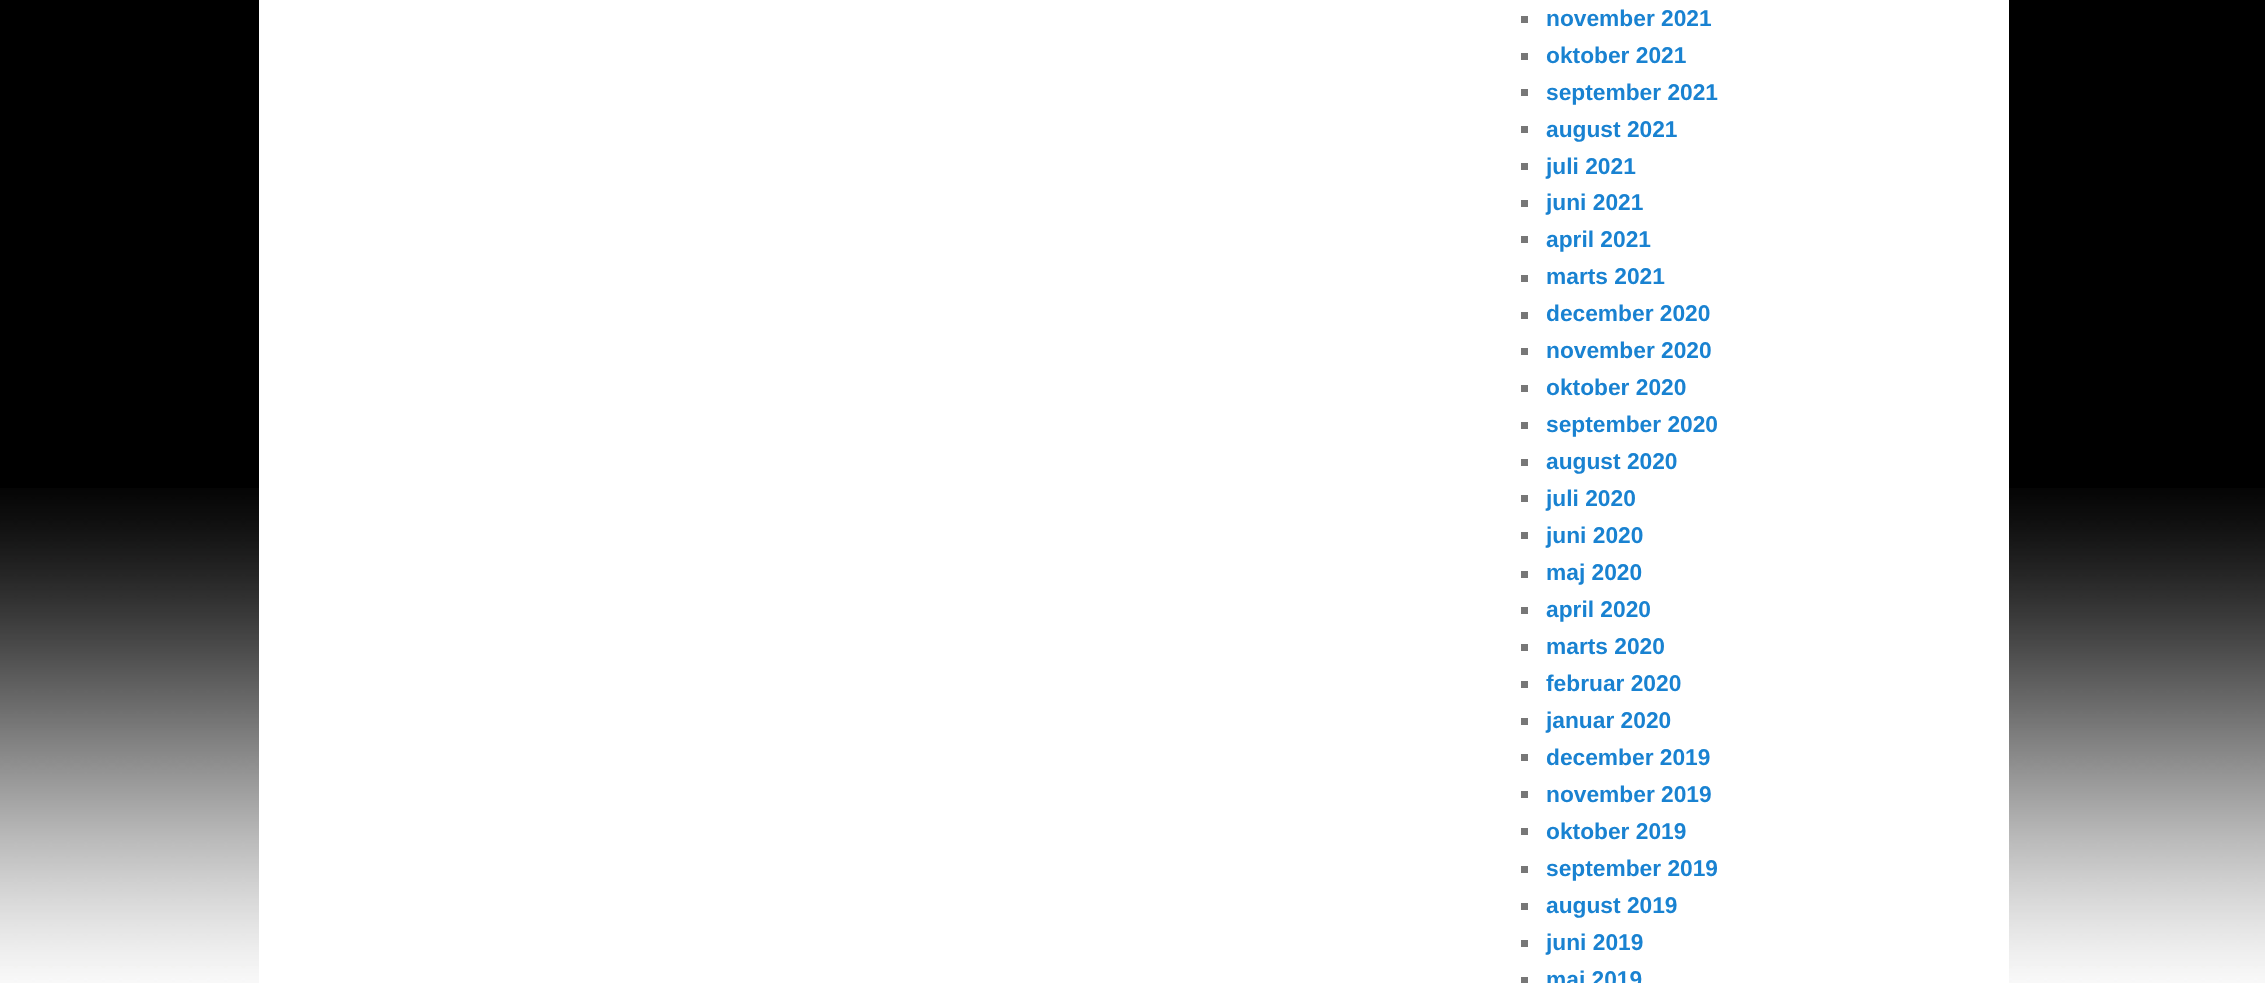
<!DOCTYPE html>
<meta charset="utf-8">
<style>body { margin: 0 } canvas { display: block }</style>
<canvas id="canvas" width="2265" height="983"></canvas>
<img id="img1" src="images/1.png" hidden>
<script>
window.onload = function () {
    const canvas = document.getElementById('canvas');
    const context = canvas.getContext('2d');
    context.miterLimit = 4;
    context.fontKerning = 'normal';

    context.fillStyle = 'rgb(0, 0, 0)';
    context.fillRect(0, 0, 2265, 983);
    context.drawImage(document.getElementById('img1'), 0, 488, 2265, 495);
    context.fillStyle = 'rgb(255, 255, 255)';
    context.fillRect(259, 0, 1750, 983);
    context.fillStyle = 'rgb(119, 119, 119)';
    context.fillRect(1521, 16, 7, 7);
    context.fillRect(1521, 53, 7, 7);
    context.fillRect(1521, 89, 7, 7);
    context.fillRect(1521, 126, 7, 7);
    context.fillRect(1521, 163, 7, 7);
    context.fillRect(1521, 200, 7, 7);
    context.fillRect(1521, 236, 7, 7);
    context.fillRect(1521, 275, 7, 7);
    context.fillRect(1521, 312, 7, 7);
    context.fillRect(1521, 348, 7, 7);
    context.fillRect(1521, 385, 7, 7);
    context.fillRect(1521, 422, 7, 7);
    context.fillRect(1521, 459, 7, 7);
    context.fillRect(1521, 495, 7, 7);
    context.fillRect(1521, 532, 7, 7);
    context.fillRect(1521, 571, 7, 7);
    context.fillRect(1521, 607, 7, 7);
    context.fillRect(1521, 644, 7, 7);
    context.fillRect(1521, 681, 7, 7);
    context.fillRect(1521, 718, 7, 7);
    context.fillRect(1521, 754, 7, 7);
    context.fillRect(1521, 791, 7, 7);
    context.fillRect(1521, 828, 7, 7);
    context.fillRect(1521, 866, 7, 7);
    context.fillRect(1521, 903, 7, 7);
    context.fillRect(1521, 940, 7, 7);
    context.fillRect(1521, 977, 7, 6);
    context.font = 'bold 22.75px Liberation Sans';
    context.fillStyle = 'rgb(25, 130, 209)';
    context.fillText('november 2021', 1546, 26);
    context.fillText('oktober 2021', 1546, 63);
    context.fillText('september 2021', 1546, 100);
    context.fillText('august 2021', 1546, 137);
    context.fillText('juli 2021', 1546, 174);
    context.fillText('juni 2021', 1546, 210);
    context.fillText('april 2021', 1546, 247);
    context.fillText('marts 2021', 1546, 284);
    context.fillText('december 2020', 1546, 321);
    context.fillText('november 2020', 1546, 358);
    context.fillText('oktober 2020', 1546, 395);
    context.fillText('september 2020', 1546, 432);
    context.fillText('august 2020', 1546, 469);
    context.fillText('juli 2020', 1546, 506);
    context.fillText('juni 2020', 1546, 543);
    context.fillText('maj 2020', 1546, 580);
    context.fillText('april 2020', 1546, 617);
    context.fillText('marts 2020', 1546, 654);
    context.fillText('februar 2020', 1546, 691);
    context.fillText('januar 2020', 1546, 728);
    context.fillText('december 2019', 1546, 765);
    context.fillText('november 2019', 1546, 802);
    context.fillText('oktober 2019', 1546, 839);
    context.fillText('september 2019', 1546, 876);
    context.fillText('august 2019', 1546, 913);
    context.fillText('juni 2019', 1546, 950);
    context.fillText('maj 2019', 1546, 987);
};
</script>
